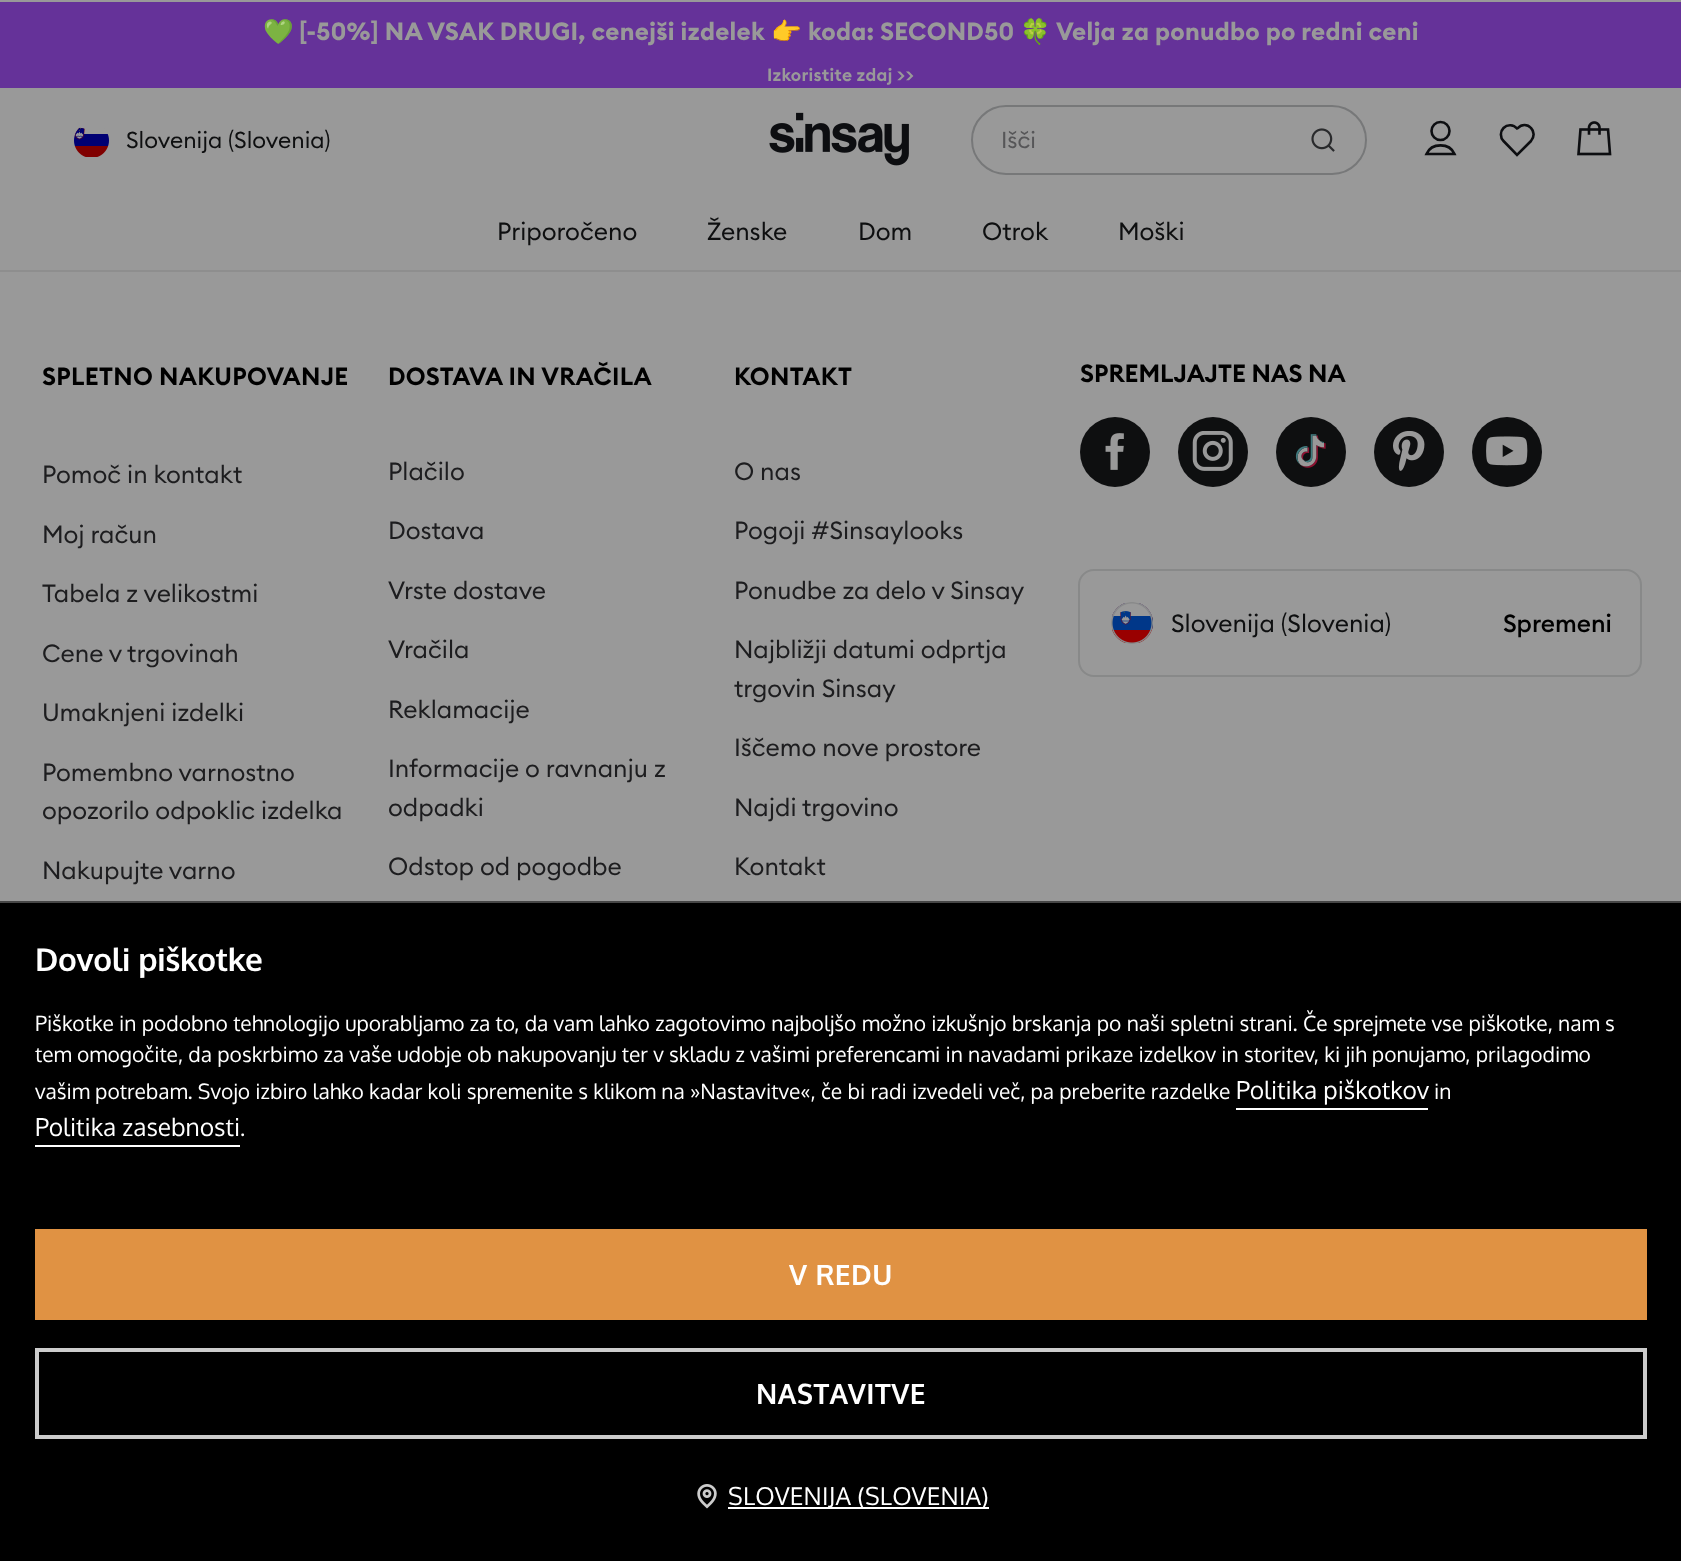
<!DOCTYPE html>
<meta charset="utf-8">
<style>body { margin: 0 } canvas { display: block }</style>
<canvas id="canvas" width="1681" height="1561"></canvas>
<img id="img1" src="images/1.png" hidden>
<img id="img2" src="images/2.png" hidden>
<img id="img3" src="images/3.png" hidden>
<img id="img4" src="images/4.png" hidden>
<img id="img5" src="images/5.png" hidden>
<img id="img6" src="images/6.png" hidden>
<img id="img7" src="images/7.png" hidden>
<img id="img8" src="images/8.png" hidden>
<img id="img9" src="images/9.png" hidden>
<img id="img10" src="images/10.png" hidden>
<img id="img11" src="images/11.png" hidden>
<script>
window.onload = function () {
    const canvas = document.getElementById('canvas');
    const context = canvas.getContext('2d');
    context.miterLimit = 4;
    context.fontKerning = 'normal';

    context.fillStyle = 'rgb(153, 153, 153)';
    context.fillRect(0, 0, 1681, 1561);
    context.fillStyle = 'rgb(101, 50, 153)';
    context.fillRect(0, 2, 1681, 86);
    context.drawImage(document.getElementById('img1'), 74, 127, 35, 30);
    context.drawImage(document.getElementById('img2'), 769, 112, 140, 54);
    context.beginPath();
    context.roundRect(972, 106, 394, 68, 34);
    context.strokeStyle = 'rgb(119, 120, 121)';
    context.lineWidth = 2;
    context.stroke();
    context.drawImage(document.getElementById('img3'), 1311, 128, 24, 24);
    context.beginPath();
    context.arc(1440.5, 131, 9, 0, 2 * Math.PI);
    context.strokeStyle = 'rgb(13, 14, 17)';
    context.lineWidth = 2.6;
    context.stroke();
    context.beginPath();
    context.moveTo(1454.5, 154);
    context.lineTo(1426.5, 154);
    context.bezierCurveTo(1431.5, 142.5, 1449.5, 142.5, 1454.5, 154);
    context.closePath();
    context.lineCap = 'round';
    context.stroke();
    context.beginPath();
    context.moveTo(1503.5, 128);
    context.bezierCurveTo(1507.5, 124, 1513.5, 124.5, 1517, 128.5);
    context.lineTo(1518, 128);
    context.bezierCurveTo(1521.5, 124, 1527.5, 124, 1531, 128);
    context.bezierCurveTo(1534.5, 131.5, 1534.5, 137, 1531, 141);
    context.lineTo(1517, 155);
    context.lineTo(1503.5, 141);
    context.bezierCurveTo(1500, 137.5, 1500, 131.5, 1503.5, 128);
    context.closePath();
    context.lineCap = 'butt';
    context.stroke();
    context.drawImage(document.getElementById('img4'), 1577, 121, 35, 35);
    context.fillStyle = 'rgb(142, 142, 142)';
    context.fillRect(0, 270, 1681, 2);
    context.fillStyle = 'rgb(14, 15, 16)';
    context.beginPath();
    context.arc(1115, 452, 35, 0, 2 * Math.PI);
    context.fill();
    context.drawImage(document.getElementById('img5'), 1105, 433, 19, 37);
    context.beginPath();
    context.arc(1213, 452, 35, 0, 2 * Math.PI);
    context.fill();
    context.drawImage(document.getElementById('img6'), 1192, 431, 41, 40);
    context.beginPath();
    context.arc(1311, 452, 35, 0, 2 * Math.PI);
    context.fill();
    context.drawImage(document.getElementById('img7'), 1295, 434, 31, 34);
    context.beginPath();
    context.arc(1409, 452, 35, 0, 2 * Math.PI);
    context.fill();
    context.drawImage(document.getElementById('img8'), 1393, 431, 32, 40);
    context.beginPath();
    context.arc(1507, 452, 35, 0, 2 * Math.PI);
    context.fill();
    context.drawImage(document.getElementById('img9'), 1486, 436, 42, 30);
    context.beginPath();
    context.roundRect(1079, 570, 562, 106, 15);
    context.strokeStyle = 'rgb(136, 137, 137)';
    context.lineWidth = 2;
    context.stroke();
    context.drawImage(document.getElementById('img10'), 1111, 602, 42, 42);
    context.fillStyle = 'rgb(0, 0, 0)';
    context.fillRect(0, 903, 1681, 658);
    context.fillStyle = 'rgb(71, 71, 71)';
    context.fillRect(0, 901, 1681, 2);
    context.fillStyle = 'rgb(255, 255, 255)';
    context.fillRect(1236, 1108, 192, 2);
    context.fillRect(35, 1145, 205, 2);
    context.fillStyle = 'rgb(224, 146, 67)';
    context.fillRect(35, 1229, 1612, 91);
    context.strokeStyle = 'rgb(204, 204, 204)';
    context.lineWidth = 4;
    context.strokeRect(37, 1350, 1608, 87);
    context.drawImage(document.getElementById('img11'), 697, 1484, 20, 25);
    context.fillStyle = 'rgb(255, 255, 255)';
    context.fillRect(728, 1507, 261, 2);
    context.letterSpacing = '0.25px';
    context.font = 'bold 24.5px Noto Color Emoji';
    context.fillStyle = 'rgb(153, 153, 153)';
    context.fillText('💚', 263, 40);
    context.font = 'bold 24.5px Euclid';
    context.fillText('[-50%] NA VSAK DRUGI, cenejši izdelek', 299, 40);
    context.font = 'bold 24.5px Noto Color Emoji';
    context.fillText('👉', 771, 40);
    context.font = 'bold 24.5px Euclid';
    context.fillText('koda: SECOND50', 808, 40);
    context.font = 'bold 24.5px Noto Color Emoji';
    context.fillText('🍀', 1020, 40);
    context.font = 'bold 24.5px Euclid';
    context.fillText('Velja za ponudbo po redni ceni', 1056, 40);
    context.font = '600 17.5px Euclid';
    context.fillText('Izkoristite zdaj >>', 767, 81);
    context.letterSpacing = '0px';
    context.font = '22.75px Euclid';
    context.fillStyle = 'rgb(14, 15, 16)';
    context.fillText('Slovenija (Slovenia)', 126, 148);
    context.fillStyle = 'rgb(86, 86, 88)';
    context.fillText('Išči', 1001, 148);
    context.font = '24.5px Euclid';
    context.fillStyle = 'rgb(14, 15, 16)';
    context.fillText('Priporočeno', 497, 240);
    context.fillText('Ženske', 707, 240);
    context.fillText('Dom', 858, 240);
    context.fillText('Otrok', 982, 240);
    context.fillText('Moški', 1118, 240);
    context.letterSpacing = '0.3px';
    context.font = '600 24.5px Euclid';
    context.fillStyle = 'rgb(0, 0, 0)';
    context.fillText('SPLETNO NAKUPOVANJE', 42, 385);
    context.letterSpacing = '0px';
    context.font = '24.5px Euclid';
    context.fillStyle = 'rgb(29, 29, 31)';
    context.fillText('Pomoč in kontakt', 42, 483);
    context.fillText('Moj račun', 42, 543);
    context.fillText('Tabela z velikostmi', 42, 602);
    context.fillText('Cene v trgovinah', 42, 662);
    context.fillText('Umaknjeni izdelki', 42, 721);
    context.fillText('Pomembno varnostno', 42, 781);
    context.fillText('opozorilo odpoklic izdelka', 42, 819);
    context.fillText('Nakupujte varno', 42, 879);
    context.letterSpacing = '0.3px';
    context.font = '600 24.5px Euclid';
    context.fillStyle = 'rgb(0, 0, 0)';
    context.fillText('DOSTAVA IN VRAČILA', 388, 385);
    context.letterSpacing = '0px';
    context.font = '24.5px Euclid';
    context.fillStyle = 'rgb(29, 29, 31)';
    context.fillText('Plačilo', 388, 480);
    context.fillText('Dostava', 388, 539);
    context.fillText('Vrste dostave', 388, 599);
    context.fillText('Vračila', 388, 658);
    context.fillText('Reklamacije', 388, 718);
    context.fillText('Informacije o ravnanju z', 388, 777);
    context.fillText('odpadki', 388, 816);
    context.fillText('Odstop od pogodbe', 388, 875);
    context.letterSpacing = '0.3px';
    context.font = '600 24.5px Euclid';
    context.fillStyle = 'rgb(0, 0, 0)';
    context.fillText('KONTAKT', 734, 385);
    context.letterSpacing = '0px';
    context.font = '24.5px Euclid';
    context.fillStyle = 'rgb(29, 29, 31)';
    context.fillText('O nas', 734, 480);
    context.fillText('Pogoji #Sinsaylooks', 734, 539);
    context.fillText('Ponudbe za delo v Sinsay', 734, 599);
    context.fillText('Najbližji datumi odprtja', 734, 658);
    context.fillText('trgovin Sinsay', 734, 697);
    context.fillText('Iščemo nove prostore', 734, 756);
    context.fillText('Najdi trgovino', 734, 816);
    context.fillText('Kontakt', 734, 875);
    context.font = '600 24.5px Euclid';
    context.fillStyle = 'rgb(0, 0, 0)';
    context.fillText('SPREMLJAJTE NAS NA', 1080, 382);
    context.font = '24.5px Euclid';
    context.fillStyle = 'rgb(14, 15, 16)';
    context.fillText('Slovenija (Slovenia)', 1171, 632);
    context.font = '500 24.5px Euclid';
    context.fillStyle = 'rgb(0, 0, 0)';
    context.fillText('Spremeni', 1503, 632);
    context.letterSpacing = '-0.3px';
    context.font = 'bold 31.5px Oxygen';
    context.fillStyle = 'rgb(255, 255, 255)';
    context.fillText('Dovoli piškotke', 35, 971);
    context.letterSpacing = '0px';
    context.font = '21px Oxygen';
    context.fillText('Piškotke in podobno tehnologijo uporabljamo za to, da vam lahko zagotovimo najboljšo možno izkušnjo brskanja po naši spletni strani. Če sprejmete vse piškotke, nam s', 35, 1031);
    context.fillText('tem omogočite, da poskrbimo za vaše udobje ob nakupovanju ter v skladu z vašimi preferencami in navadami prikaze izdelkov in storitev, ki jih ponujamo, prilagodimo', 35, 1062);
    context.fillText('vašim potrebam. Svojo izbiro lahko kadar koli spremenite s klikom na »Nastavitve«, če bi radi izvedeli več, pa preberite razdelke', 35, 1099);
    context.font = '24.5px Oxygen';
    context.fillText('Politika piškotkov', 1236, 1099);
    context.font = '21px Oxygen';
    context.fillText('in', 1434, 1099);
    context.font = '24.5px Oxygen';
    context.fillText('Politika zasebnosti', 35, 1136);
    context.font = '21px Oxygen';
    context.fillText('.', 240, 1136);
    context.letterSpacing = '0.5px';
    context.font = 'bold 28px Oxygen';
    context.fillText('V REDU', 789, 1285);
    context.fillText('NASTAVITVE', 756, 1404);
    context.letterSpacing = '0.2px';
    context.font = '24.5px Oxygen';
    context.fillText('SLOVENIJA (SLOVENIA)', 728, 1505);
};
</script>
